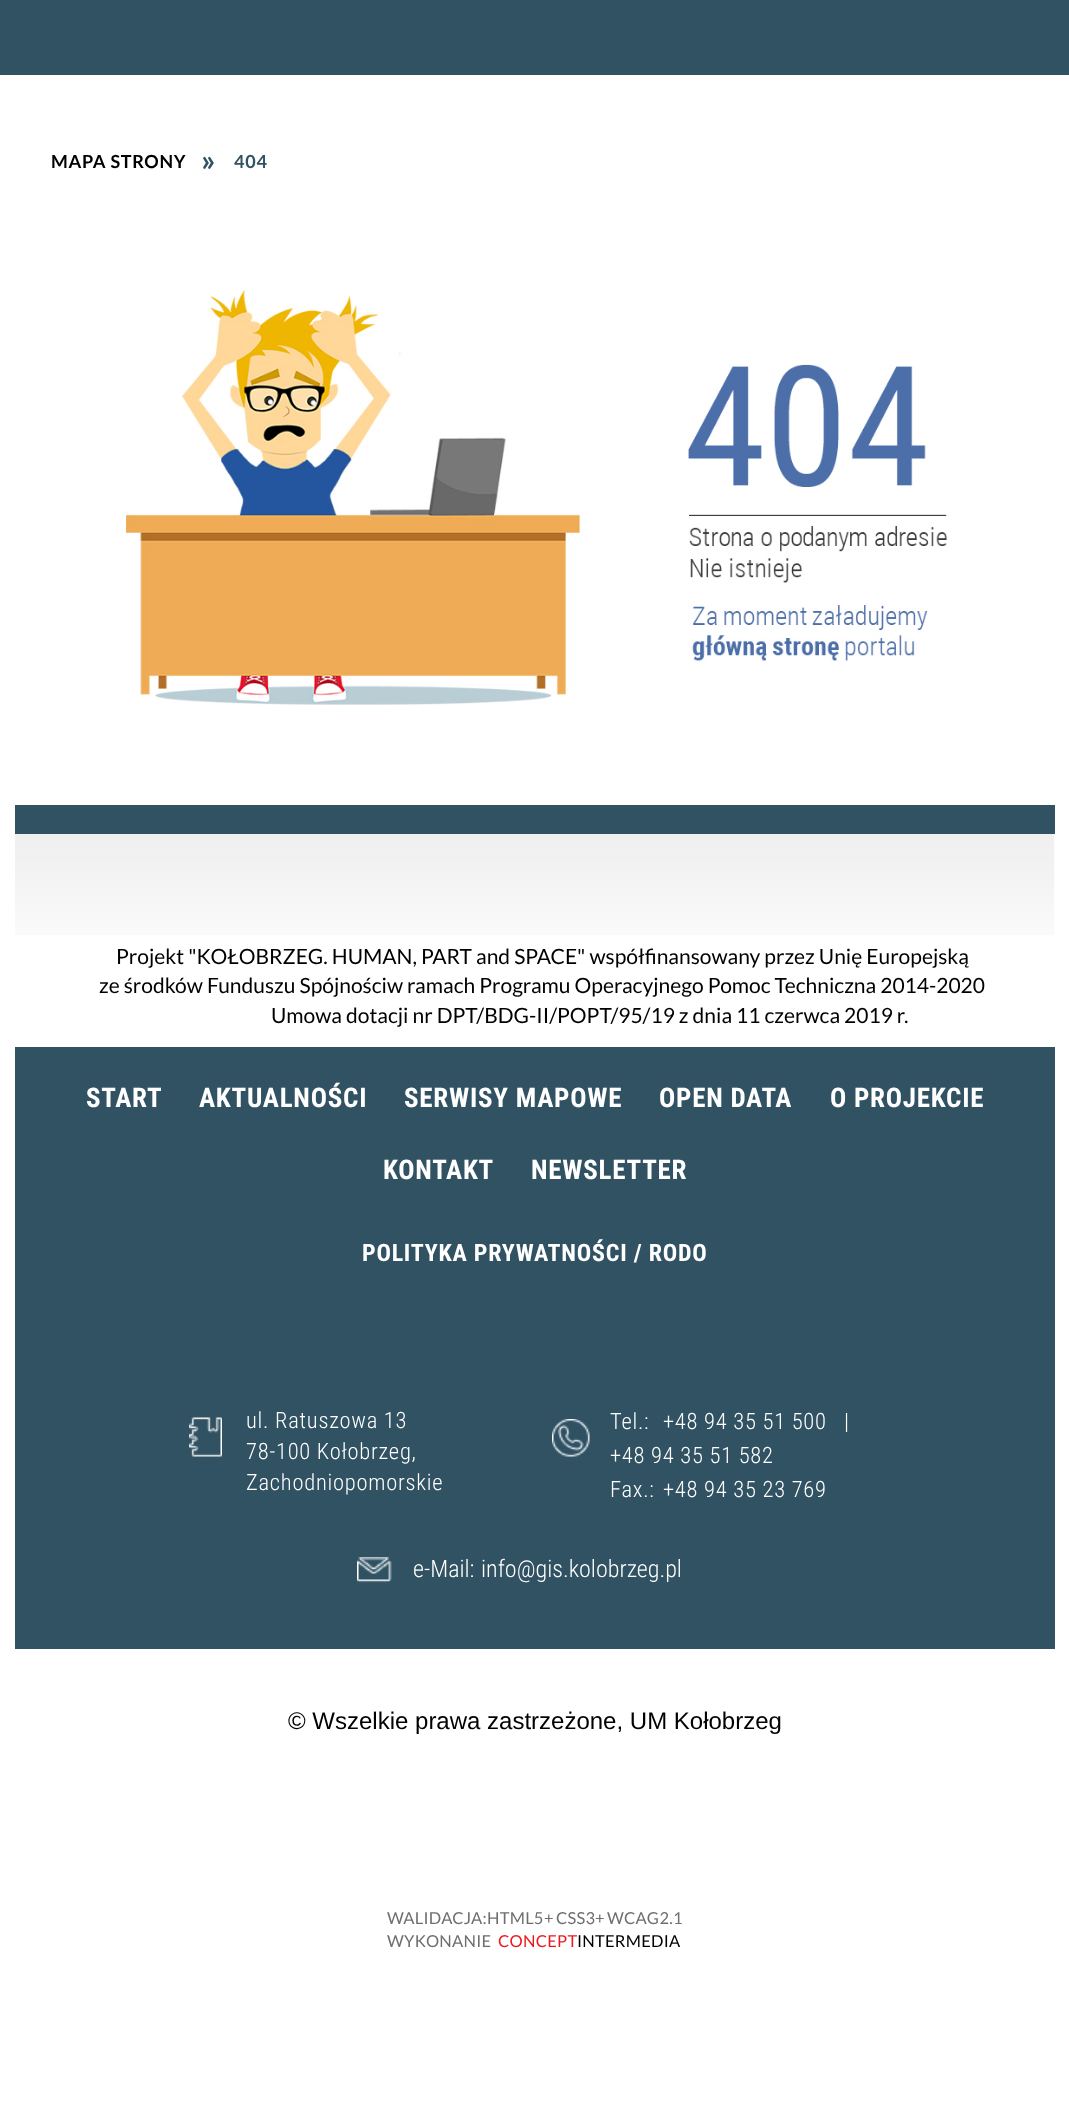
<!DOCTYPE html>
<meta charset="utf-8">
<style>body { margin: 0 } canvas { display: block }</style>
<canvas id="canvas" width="1069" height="2127"></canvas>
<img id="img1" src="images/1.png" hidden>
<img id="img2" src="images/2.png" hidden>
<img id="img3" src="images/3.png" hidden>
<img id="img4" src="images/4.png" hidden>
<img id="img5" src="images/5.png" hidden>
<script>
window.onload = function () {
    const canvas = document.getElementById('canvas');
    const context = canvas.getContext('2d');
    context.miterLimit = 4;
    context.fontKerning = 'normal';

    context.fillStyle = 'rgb(255, 255, 255)';
    context.fillRect(0, 0, 1069, 2127);
    context.fillStyle = 'rgb(49, 82, 98)';
    context.fillRect(0, 0, 1069, 75);
    context.drawImage(document.getElementById('img1'), 126, 290, 822, 415);
    context.drawImage(document.getElementById('img2'), 15, 834, 1040, 101);
    context.fillRect(15, 805, 1040, 29);
    context.fillRect(15, 1047, 1040, 602);
    context.drawImage(document.getElementById('img3'), 189, 1417, 33, 40);
    context.drawImage(document.getElementById('img4'), 552, 1419, 38, 38);
    context.drawImage(document.getElementById('img5'), 357, 1557, 35, 26);
    context.letterSpacing = '0.75px';
    context.font = 'bold 18px Lato';
    context.fillStyle = 'rgb(0, 0, 0)';
    context.fillText('MAPA STRONY', 51, 168);
    context.font = 'bold 30px Lato';
    context.fillStyle = 'rgb(49, 82, 98)';
    context.fillText('»', 201, 171);
    context.font = 'bold 18px Lato';
    context.fillText('404', 234, 168);
    context.letterSpacing = '0px';
    context.font = '21px Lato';
    context.fillStyle = 'rgb(0, 0, 0)';
    context.fillText('Projekt "KOŁOBRZEG. HUMAN, PART and SPACE" współfinansowany przez Unię Europejską', 116, 964);
    context.fillText('ze środków Funduszu Spójnościw ramach Programu Operacyjnego Pomoc Techniczna 2014-2020', 99, 993);
    context.fillText('Umowa dotacji nr DPT/BDG-II/POPT/95/19 z dnia 11 czerwca 2019 r.', 271, 1023);
    context.letterSpacing = '0.75px';
    context.font = 'bold 27px Roboto Condensed';
    context.fillStyle = 'rgb(255, 255, 255)';
    context.fillText('START', 86, 1107);
    context.fillText('AKTUALNOŚCI', 199, 1107);
    context.fillText('SERWISY MAPOWE', 404, 1107);
    context.fillText('OPEN DATA', 659, 1107);
    context.fillText('O PROJEKCIE', 830, 1107);
    context.fillText('KONTAKT', 383, 1179);
    context.fillText('NEWSLETTER', 531, 1179);
    context.font = 'bold 24px Roboto Condensed';
    context.fillText('POLITYKA PRYWATNOŚCI / RODO', 362, 1261);
    context.font = '300 22.5px Roboto Condensed';
    context.fillText('ul. Ratuszowa 13', 246, 1428);
    context.fillText('78-100 Kołobrzeg,', 246, 1459);
    context.fillText('Zachodniopomorskie', 246, 1490);
    context.fillText('Tel.:', 610, 1429);
    context.fillText('+48 94 35 51 500', 663, 1429);
    context.fillText('|', 844, 1429);
    context.fillText('+48 94 35 51 582', 610, 1463);
    context.fillText('Fax.:', 610, 1497);
    context.fillText('+48 94 35 23 769', 663, 1497);
    context.letterSpacing = '0px';
    context.font = '300 24px Roboto Condensed';
    context.fillText('e-Mail:', 413, 1577);
    context.fillText('info@gis.kolobrzeg.pl', 481, 1577);
    context.font = '24px Liberation Sans';
    context.fillStyle = 'rgb(0, 0, 0)';
    context.fillText('© Wszelkie prawa zastrzeżone, UM Kołobrzeg', 288, 1729);
    context.letterSpacing = '0.25px';
    context.font = '16.5px Lato';
    context.fillStyle = 'rgb(110, 110, 110)';
    context.fillText('WALIDACJA:', 387, 1924);
    context.fillText('HTML5', 487, 1924);
    context.fillText('+', 544, 1924);
    context.fillText('CSS3', 556, 1924);
    context.fillText('+', 595, 1924);
    context.wordSpacing = '-3px';
    context.fillText('WCAG 2.1', 607, 1924);
    context.wordSpacing = '0px';
    context.fillText('WYKONANIE', 387, 1947);
    context.fillStyle = 'rgb(234, 25, 32)';
    context.fillText('CONCEPT', 498, 1947);
    context.fillStyle = 'rgb(0, 0, 0)';
    context.fillText('INTERMEDIA', 577, 1947);
};
</script>
